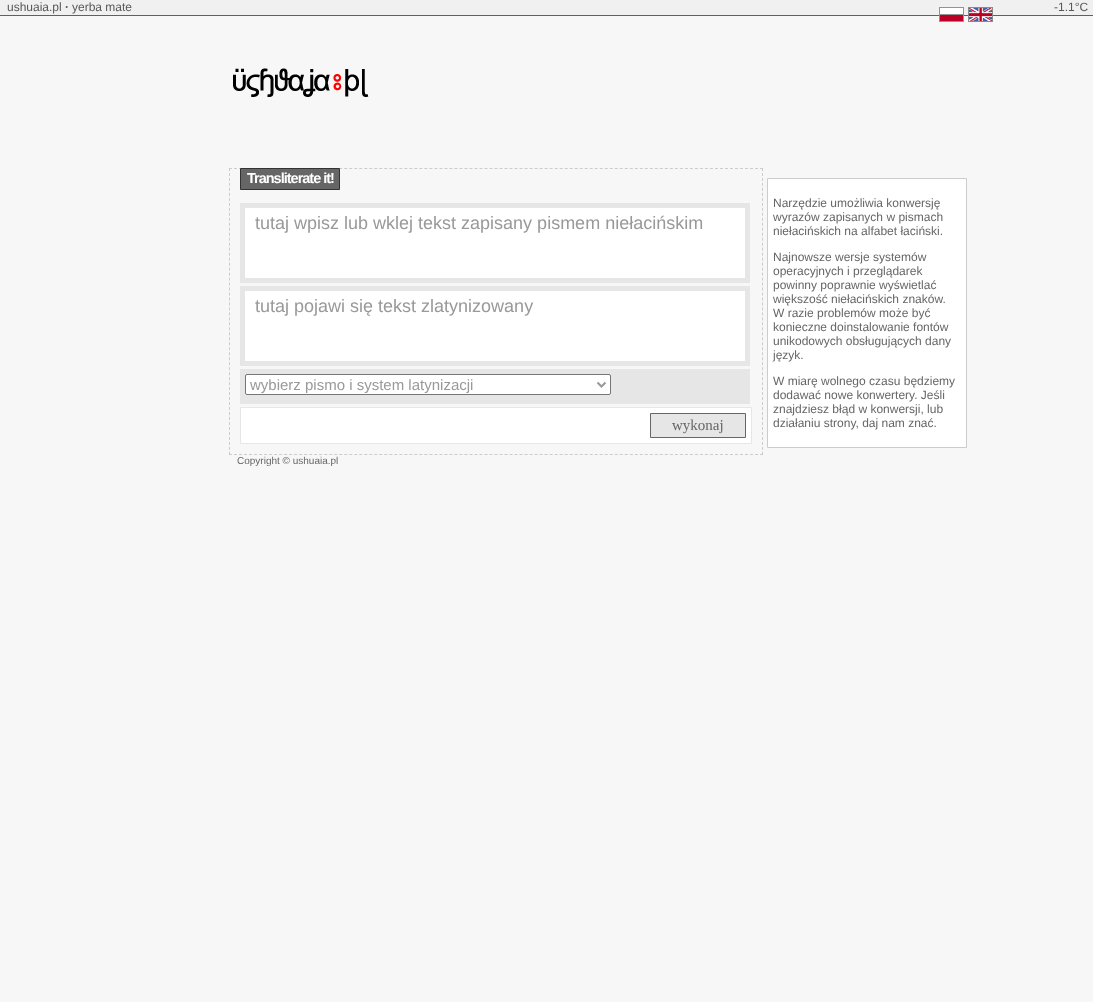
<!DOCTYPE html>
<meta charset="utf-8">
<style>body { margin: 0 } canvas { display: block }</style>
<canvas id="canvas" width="1093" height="1002"></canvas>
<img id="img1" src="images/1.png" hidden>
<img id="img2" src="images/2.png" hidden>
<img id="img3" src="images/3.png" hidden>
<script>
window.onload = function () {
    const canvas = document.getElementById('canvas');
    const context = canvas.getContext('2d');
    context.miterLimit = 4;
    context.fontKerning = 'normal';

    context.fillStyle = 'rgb(247, 247, 247)';
    context.fillRect(0, 0, 1093, 1002);
    context.fillStyle = 'rgb(240, 240, 240)';
    context.fillRect(0, 0, 1093, 15);
    context.fillStyle = 'rgb(96, 96, 96)';
    context.fillRect(0, 15, 1093, 1);
    context.drawImage(document.getElementById('img1'), 939, 7, 25, 15);
    context.drawImage(document.getElementById('img2'), 968, 7, 25, 15);
    context.drawImage(document.getElementById('img3'), 233, 68, 136, 29);
    context.beginPath();
    context.moveTo(229, 168.5);
    context.lineTo(763, 168.5);
    context.strokeStyle = 'rgb(204, 204, 204)';
    context.setLineDash([3, 2.01]);
    context.stroke();
    context.beginPath();
    context.moveTo(762.5, 168);
    context.lineTo(762.5, 455);
    context.setLineDash([3, 1.98]);
    context.stroke();
    context.beginPath();
    context.moveTo(229, 454.5);
    context.lineTo(763, 454.5);
    context.setLineDash([3, 2.01]);
    context.stroke();
    context.beginPath();
    context.moveTo(229.5, 168);
    context.lineTo(229.5, 455);
    context.setLineDash([3, 1.98]);
    context.stroke();
    context.fillStyle = 'rgb(102, 102, 102)';
    context.beginPath();
    context.rect(240.5, 168.5, 99, 21);
    context.fill();
    context.strokeStyle = 'rgb(51, 51, 51)';
    context.setLineDash([]);
    context.stroke();
    context.fillStyle = 'rgb(230, 230, 230)';
    context.fillRect(240, 203, 510, 80);
    context.fillStyle = 'rgb(255, 255, 255)';
    context.fillRect(245, 208, 500, 70);
    context.fillStyle = 'rgb(230, 230, 230)';
    context.fillRect(240, 286, 510, 80);
    context.fillStyle = 'rgb(255, 255, 255)';
    context.fillRect(245, 291, 500, 70);
    context.fillStyle = 'rgb(230, 230, 230)';
    context.fillRect(240, 369, 510, 35);
    context.fillStyle = 'rgb(255, 255, 255)';
    context.beginPath();
    context.roundRect(245.5, 374.5, 365, 20, 1.5);
    context.fill();
    context.strokeStyle = 'rgb(118, 118, 118)';
    context.stroke();
    context.beginPath();
    context.moveTo(597.5, 382.5);
    context.lineTo(601.5, 386.5);
    context.lineTo(605.5, 382.5);
    context.strokeStyle = 'rgb(153, 153, 153)';
    context.lineWidth = 2;
    context.stroke();
    context.beginPath();
    context.rect(240.5, 407.5, 511, 36);
    context.fill();
    context.strokeStyle = 'rgb(230, 230, 230)';
    context.lineWidth = 1;
    context.stroke();
    context.fillStyle = 'rgb(230, 230, 230)';
    context.beginPath();
    context.rect(650.5, 413.5, 95, 24);
    context.fill();
    context.strokeStyle = 'rgb(102, 102, 102)';
    context.stroke();
    context.fillStyle = 'rgb(255, 255, 255)';
    context.beginPath();
    context.rect(767.5, 178.5, 199, 269);
    context.fill();
    context.strokeStyle = 'rgb(204, 204, 204)';
    context.stroke();
    context.font = '12px Liberation Sans';
    context.fillStyle = 'rgb(88, 88, 88)';
    context.fillText('ushuaia.pl', 7, 11);
    context.font = 'bold 12px Liberation Sans';
    context.fillText('·', 65, 11);
    context.font = '12px Liberation Sans';
    context.fillText('yerba mate', 72, 11);
    context.fillText('-1.1°C', 1054, 11);
    context.letterSpacing = '-1px';
    context.font = 'bold 14.5px Liberation Sans';
    context.fillStyle = 'rgb(255, 255, 255)';
    context.fillText('Transliterate it!', 247, 183);
    context.letterSpacing = '0px';
    context.font = '18px Liberation Sans';
    context.fillStyle = 'rgb(153, 153, 153)';
    context.fillText('tutaj wpisz lub wklej tekst zapisany pismem niełacińskim', 255, 229);
    context.fillText('tutaj pojawi się tekst zlatynizowany', 255, 312);
    context.font = '15px Liberation Sans';
    context.fillText('wybierz pismo i system latynizacji', 250, 390);
    context.font = '15px Liberation Serif';
    context.fillStyle = 'rgb(102, 102, 102)';
    context.fillText('wykonaj', 672, 430);
    context.font = '10px Liberation Sans';
    context.fillText('Copyright © ushuaia.pl', 237, 464);
    context.font = '12px Liberation Sans';
    context.fillText('Narzędzie umożliwia konwersję', 773, 207);
    context.fillText('wyrazów zapisanych w pismach', 773, 221);
    context.fillText('niełacińskich na alfabet łaciński.', 773, 235);
    context.fillText('Najnowsze wersje systemów', 773, 261);
    context.fillText('operacyjnych i przeglądarek', 773, 275);
    context.fillText('powinny poprawnie wyświetlać', 773, 289);
    context.fillText('większość niełacińskich znaków.', 773, 303);
    context.fillText('W razie problemów może być', 773, 317);
    context.fillText('konieczne doinstalowanie fontów', 773, 331);
    context.fillText('unikodowych obsługujących dany', 773, 345);
    context.fillText('język.', 773, 359);
    context.fillText('W miarę wolnego czasu będziemy', 773, 385);
    context.fillText('dodawać nowe konwertery. Jeśli', 773, 399);
    context.fillText('znajdziesz błąd w konwersji, lub', 773, 413);
    context.fillText('działaniu strony, daj nam znać.', 773, 427);
};
</script>
